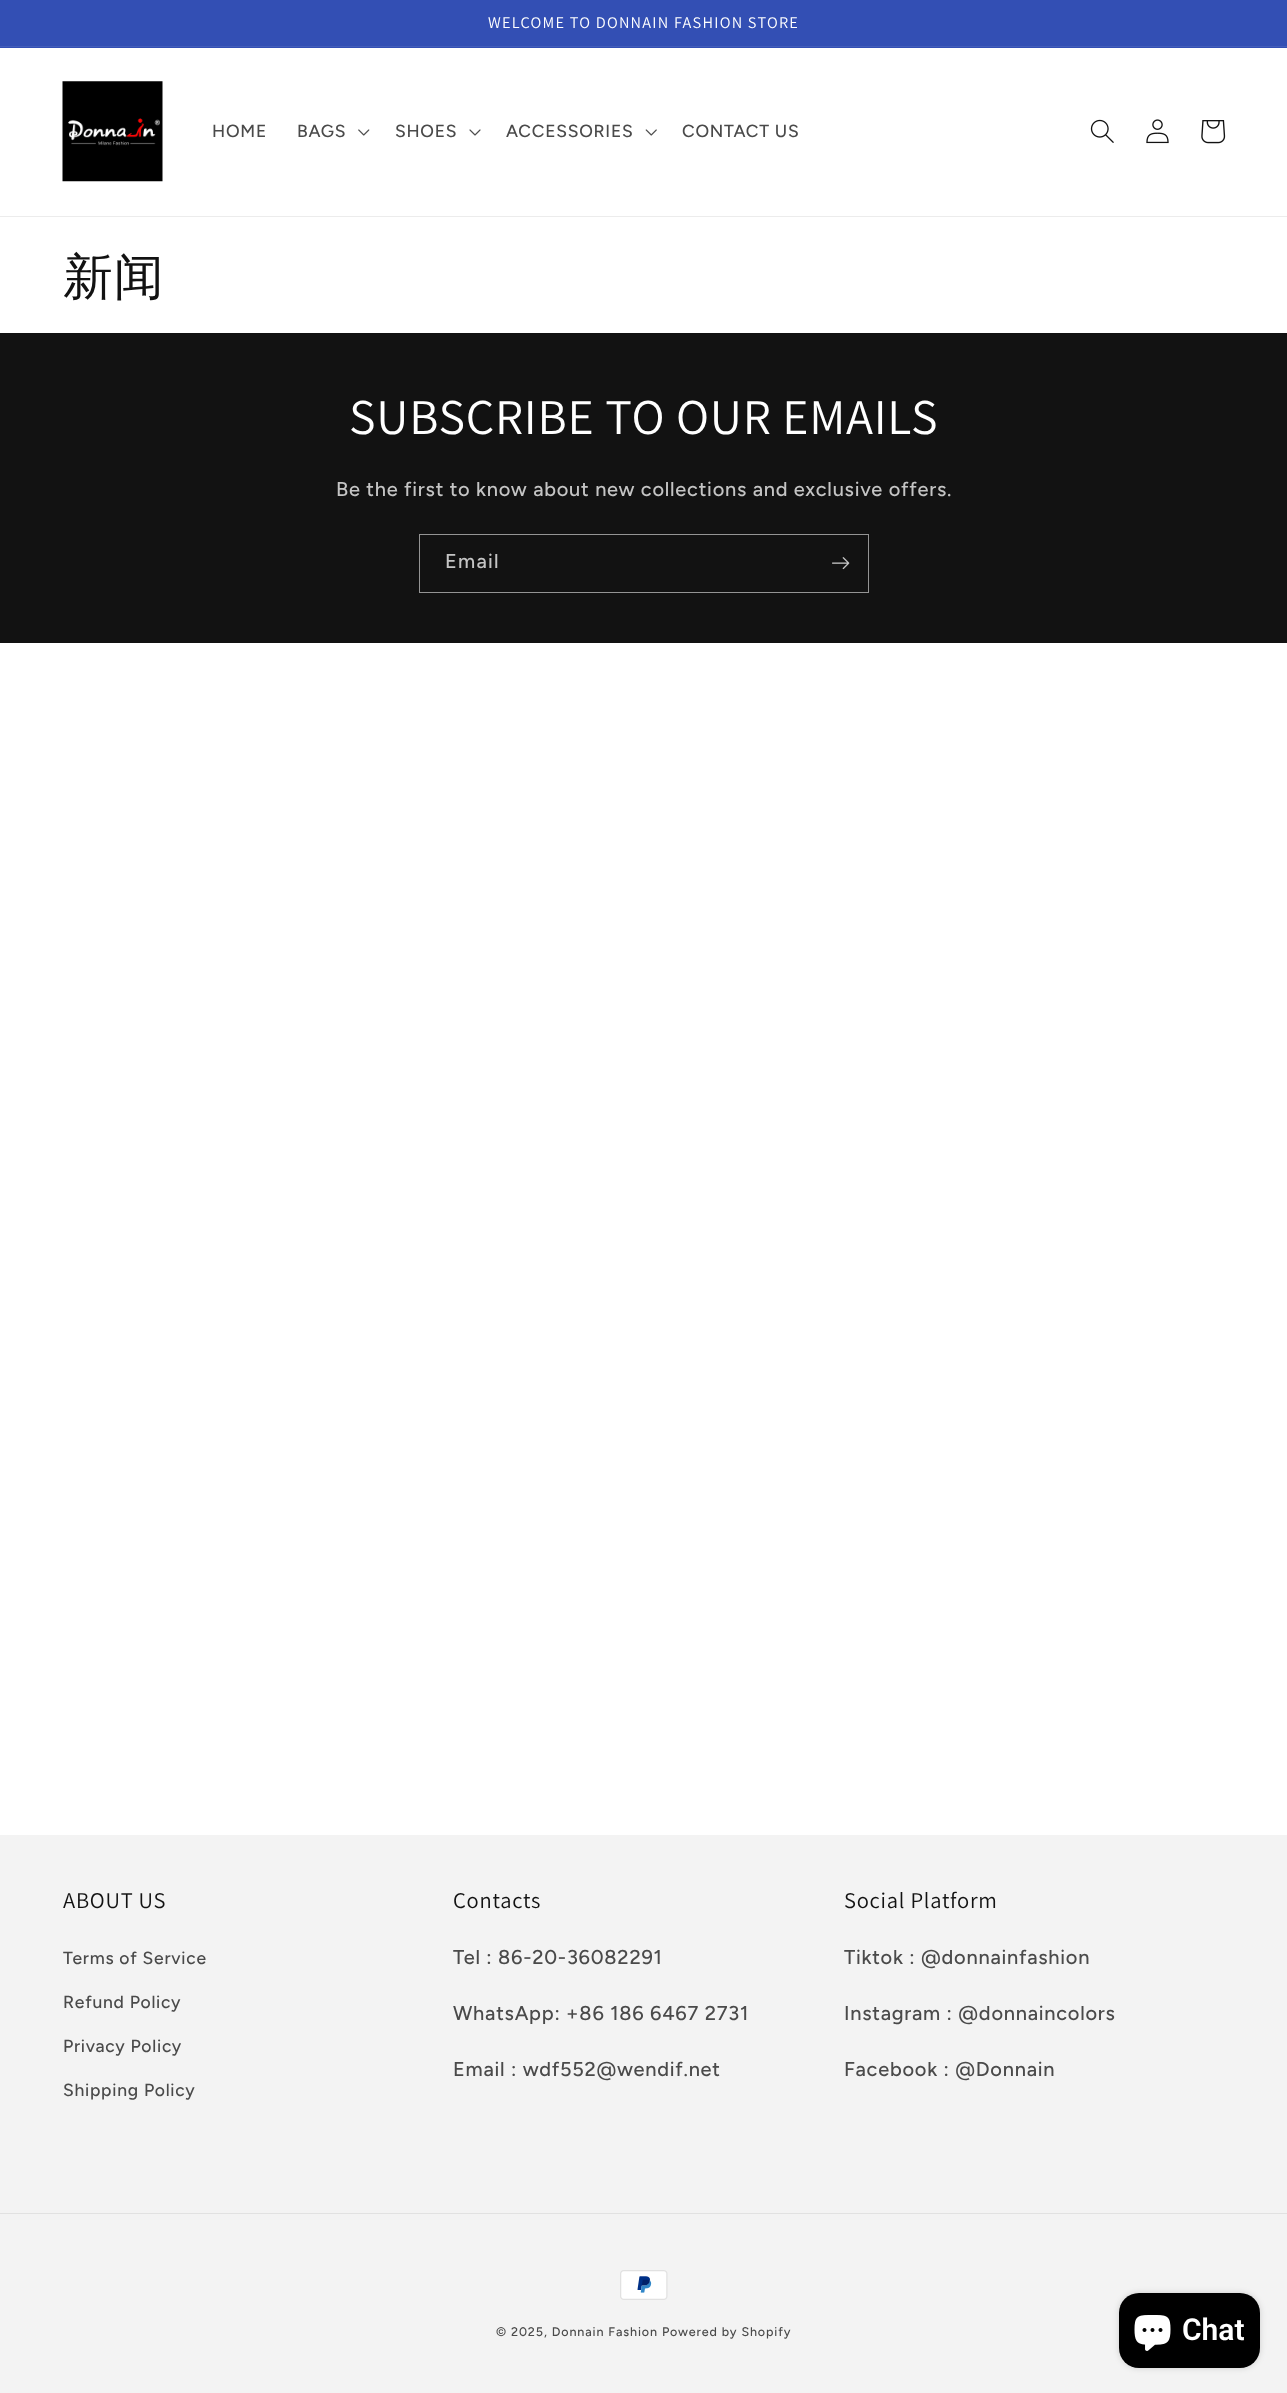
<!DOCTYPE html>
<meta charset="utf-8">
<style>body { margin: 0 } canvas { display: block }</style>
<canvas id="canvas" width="1287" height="2393"></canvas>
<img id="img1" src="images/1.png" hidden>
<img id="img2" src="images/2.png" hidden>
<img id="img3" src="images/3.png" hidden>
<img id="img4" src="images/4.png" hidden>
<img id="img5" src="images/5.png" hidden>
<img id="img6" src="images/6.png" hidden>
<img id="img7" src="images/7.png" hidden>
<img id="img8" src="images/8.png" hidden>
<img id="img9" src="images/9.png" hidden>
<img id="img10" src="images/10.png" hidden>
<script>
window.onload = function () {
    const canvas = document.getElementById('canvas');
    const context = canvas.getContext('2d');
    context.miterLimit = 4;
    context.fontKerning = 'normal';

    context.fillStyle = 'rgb(255, 255, 255)';
    context.fillRect(0, 0, 1287, 2393);
    context.fillStyle = 'rgb(51, 79, 180)';
    context.fillRect(0, 0, 1287, 48);
    context.fillStyle = 'rgb(67, 93, 186)';
    context.fillRect(0, 46, 1287, 1);
    context.fillStyle = 'rgb(236, 236, 236)';
    context.fillRect(0, 216, 1287, 1);
    context.drawImage(document.getElementById('img1'), 62, 81, 101, 101);
    context.drawImage(document.getElementById('img2'), 358, 129, 12, 7);
    context.drawImage(document.getElementById('img3'), 469, 129, 12, 7);
    context.drawImage(document.getElementById('img4'), 645, 129, 12, 7);
    context.drawImage(document.getElementById('img5'), 1090, 119, 24, 24);
    context.drawImage(document.getElementById('img6'), 1146, 119, 23, 25);
    context.drawImage(document.getElementById('img7'), 1201, 120, 25, 24);
    context.fillStyle = 'rgb(18, 18, 18)';
    context.fillRect(0, 333, 1287, 310);
    context.strokeStyle = 'rgb(148, 148, 148)';
    context.strokeRect(419.5, 534.5, 449, 58);
    context.drawImage(document.getElementById('img8'), 832, 557, 18, 13);
    context.fillStyle = 'rgb(243, 243, 243)';
    context.fillRect(0, 1835, 1287, 558);
    context.fillStyle = 'rgb(225, 225, 225)';
    context.fillRect(0, 2213, 1287, 1);
    context.drawImage(document.getElementById('img9'), 620, 2270, 48, 30);
    context.fillStyle = 'rgba(0, 0, 0, 0.15)';
    context.filter = 'blur(3px)';
    context.beginPath();
    context.roundRect(1119, 2293, 141, 75, 20);
    context.fill();
    context.filter = 'none';
    context.fillStyle = 'rgb(0, 0, 0)';
    context.beginPath();
    context.roundRect(1119, 2293, 141, 75, 20);
    context.fill();
    context.drawImage(document.getElementById('img10'), 1134, 2315, 37, 36);
    context.letterSpacing = '1.25px';
    context.font = '16.25px Assistant';
    context.fillStyle = 'rgb(255, 255, 255)';
    context.fillText('WELCOME TO DONNAIN FASHION STORE', 488, 28);
    context.letterSpacing = '0.75px';
    context.font = '500 17.5px Figtree';
    context.fillStyle = 'rgb(74, 74, 74)';
    context.fillText('HOME', 212, 137);
    context.fillText('BAGS', 297, 137);
    context.fillText('SHOES', 395, 137);
    context.fillText('ACCESSORIES', 506, 137);
    context.fillText('CONTACT US', 682, 137);
    context.font = '500 50px WenQuanYi Zen Hei';
    context.fillStyle = 'rgb(18, 18, 18)';
    context.fillText('新闻', 63, 294);
    context.font = '50px Assistant';
    context.fillStyle = 'rgb(255, 255, 255)';
    context.fillText('SUBSCRIBE TO OUR EMAILS', 349, 434);
    context.font = '500 20px Figtree';
    context.fillStyle = 'rgb(196, 196, 196)';
    context.fillText('Be the first to know about new collections and exclusive offers.', 336, 496);
    context.letterSpacing = '1.25px';
    context.fillText('Email', 445, 568);
    context.letterSpacing = '0.75px';
    context.font = '22.5px Assistant';
    context.fillStyle = 'rgb(18, 18, 18)';
    context.fillText('ABOUT US', 63, 1908);
    context.font = '500 17.5px Figtree';
    context.fillStyle = 'rgb(74, 74, 74)';
    context.fillText('Terms of Service', 63, 1964);
    context.fillText('Refund Policy', 63, 2008);
    context.fillText('Privacy Policy', 63, 2052);
    context.fillText('Shipping Policy', 63, 2096);
    context.font = '22.5px Assistant';
    context.fillStyle = 'rgb(18, 18, 18)';
    context.fillText('Contacts', 453, 1908);
    context.font = '500 20px Figtree';
    context.fillStyle = 'rgb(74, 74, 74)';
    context.fillText('Tel : 86-20-36082291', 453, 1964);
    context.fillText('WhatsApp: +86 186 6467 2731', 453, 2020);
    context.fillText('Email : wdf552@wendif.net', 453, 2076);
    context.font = '22.5px Assistant';
    context.fillStyle = 'rgb(18, 18, 18)';
    context.fillText('Social Platform', 844, 1908);
    context.font = '500 20px Figtree';
    context.fillStyle = 'rgb(74, 74, 74)';
    context.fillText('Tiktok : @donnainfashion', 844, 1964);
    context.fillText('Instagram : @donnaincolors', 844, 2020);
    context.fillText('Facebook : @Donnain', 844, 2076);
    context.letterSpacing = '0.9px';
    context.font = '500 12.5px Figtree';
    context.fillText('© 2025, Donnain Fashion', 496, 2336);
    context.fillText('Powered by Shopify', 662, 2336);
    context.letterSpacing = '0px';
    context.font = '600 30px Roboto';
    context.fillStyle = 'rgb(255, 255, 255)';
    context.fillText('Chat', 1182, 2340);
};
</script>
